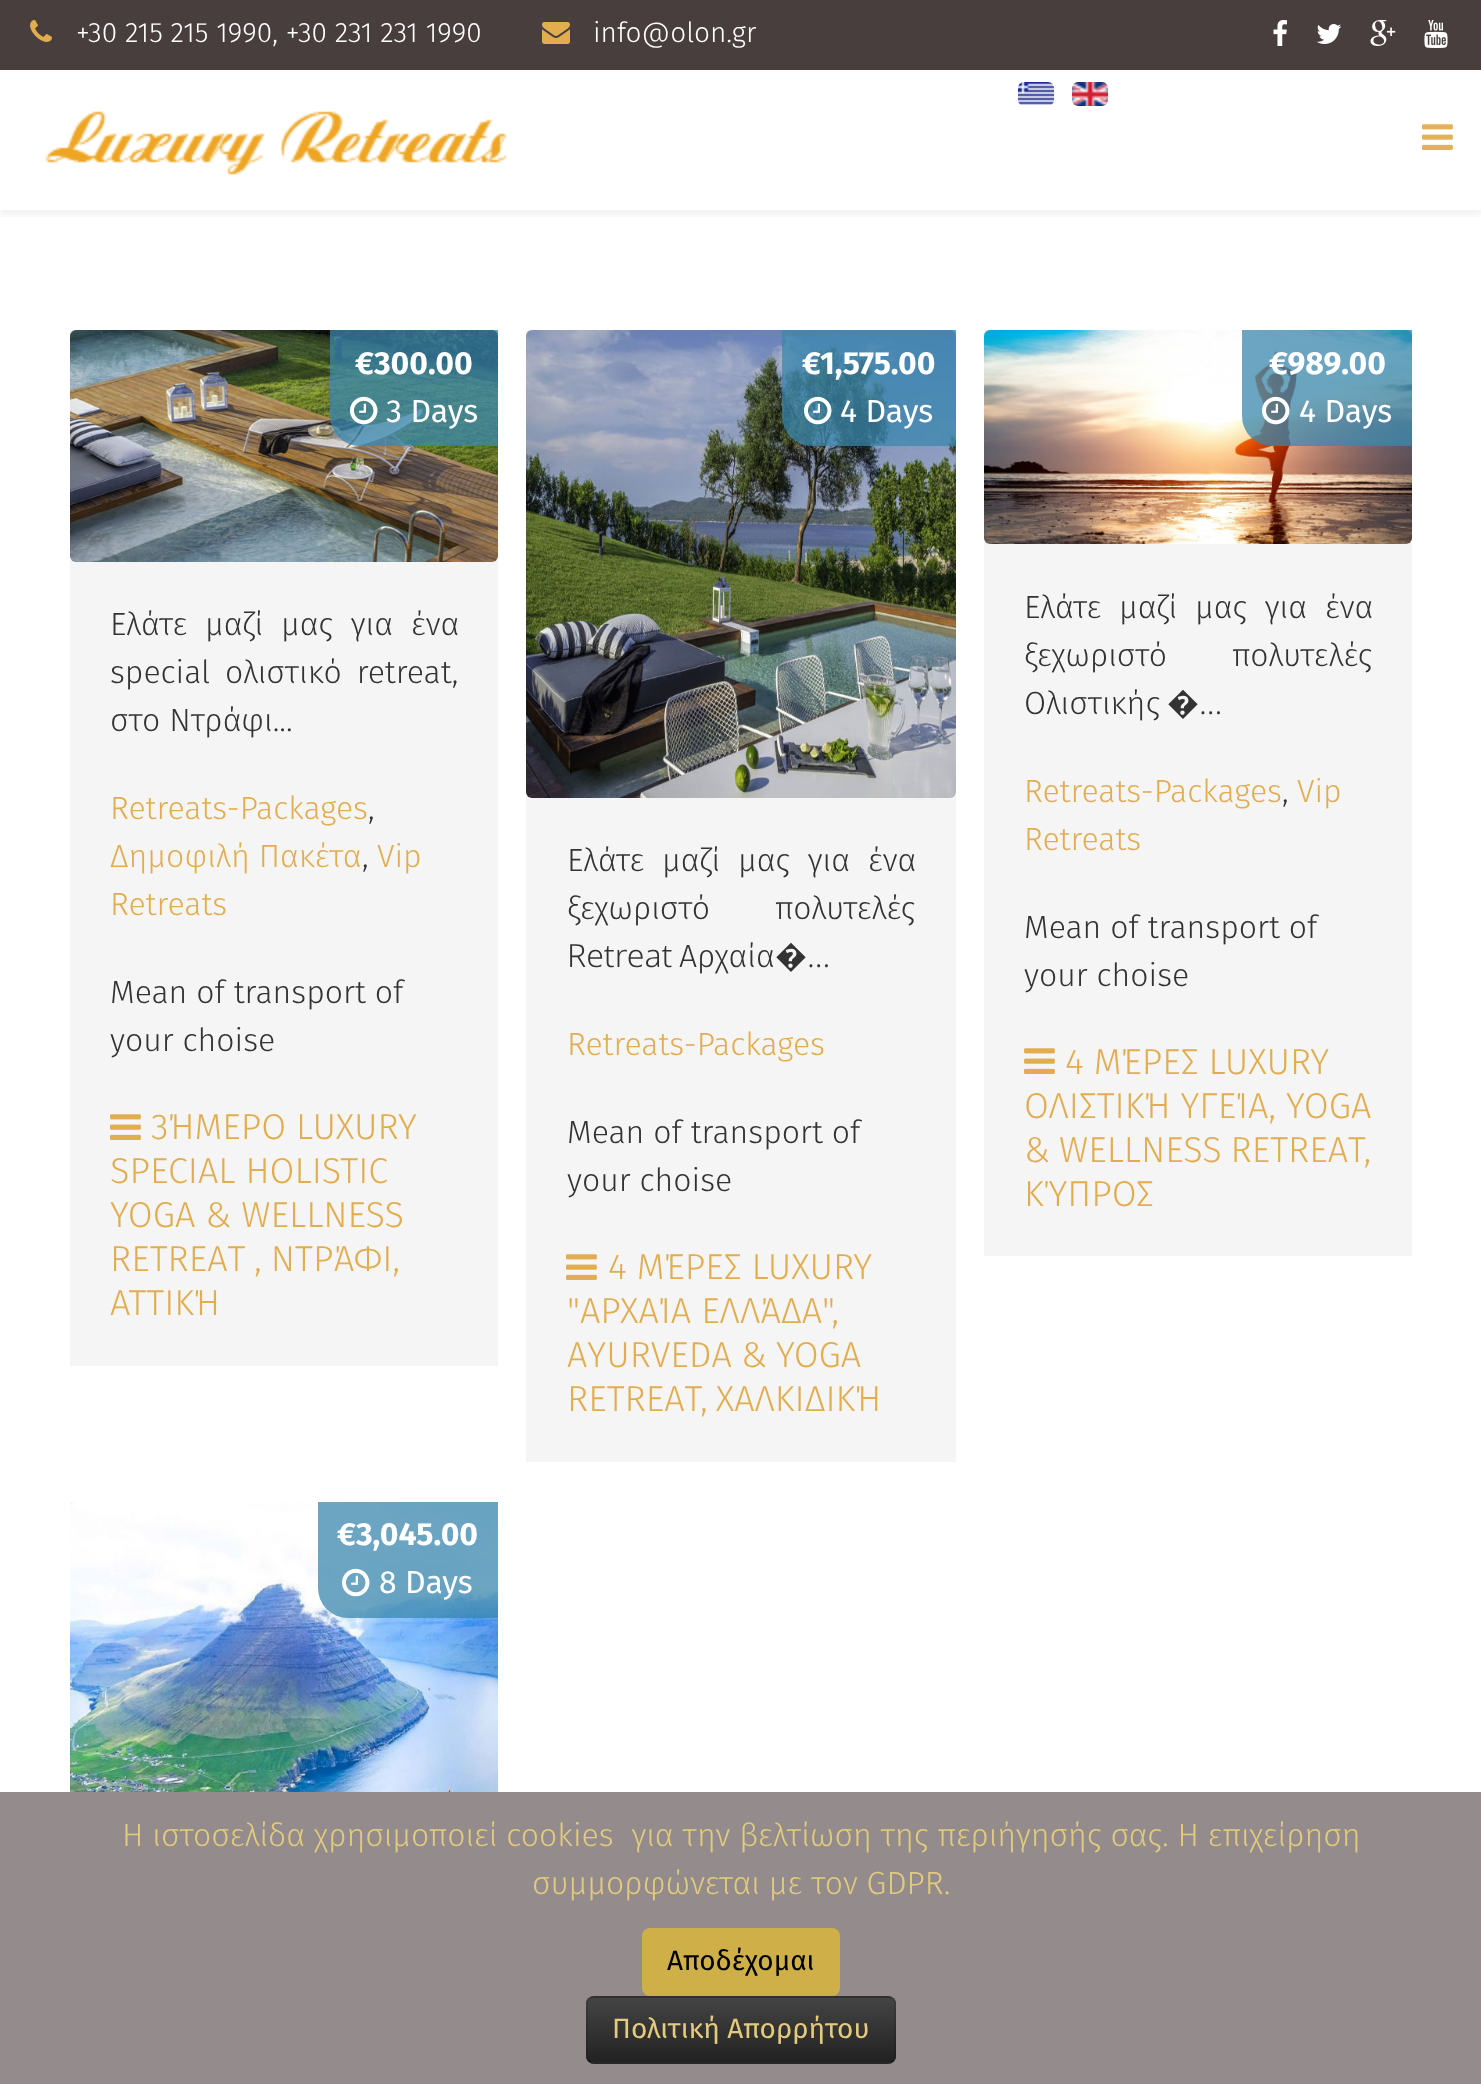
<!DOCTYPE html>
<meta charset="utf-8">
<style>body { margin: 0 } canvas { display: block }</style>
<canvas id="canvas" width="1481" height="2084"></canvas>
<img id="img1" src="images/1.png" hidden>
<img id="img2" src="images/2.png" hidden>
<img id="img3" src="images/3.png" hidden>
<img id="img4" src="images/4.png" hidden>
<img id="img5" src="images/5.png" hidden>
<img id="img6" src="images/6.png" hidden>
<img id="img7" src="images/7.png" hidden>
<img id="img8" src="images/8.png" hidden>
<img id="img9" src="images/9.png" hidden>
<img id="img10" src="images/10.png" hidden>
<img id="img11" src="images/11.png" hidden>
<img id="img12" src="images/12.png" hidden>
<img id="img13" src="images/13.png" hidden>
<img id="img14" src="images/14.png" hidden>
<img id="img15" src="images/15.png" hidden>
<img id="img16" src="images/16.png" hidden>
<img id="img17" src="images/17.png" hidden>
<img id="img18" src="images/18.png" hidden>
<img id="img19" src="images/19.png" hidden>
<script>
window.onload = function () {
    const canvas = document.getElementById('canvas');
    const context = canvas.getContext('2d');
    context.miterLimit = 4;
    context.fontKerning = 'normal';
    let gradient;

    context.fillStyle = 'rgb(255, 255, 255)';
    context.fillRect(0, 0, 1481, 2084);
    context.fillStyle = 'rgb(73, 62, 62)';
    context.fillRect(0, 0, 1481, 70);
    context.drawImage(document.getElementById('img1'), 30, 20, 22, 22);
    context.drawImage(document.getElementById('img2'), 542, 22, 28, 22);
    context.drawImage(document.getElementById('img3'), 1273, 20, 14, 26);
    context.drawImage(document.getElementById('img4'), 1316, 24, 26, 20);
    context.drawImage(document.getElementById('img5'), 1370, 20, 26, 26);
    context.drawImage(document.getElementById('img6'), 1424, 20, 24, 28);
    context.save();
    context.beginPath();
    context.rect(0, 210, 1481, 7);
    context.clip();
    context.fillStyle = 'rgba(13, 13, 13, 0.05)';
    context.filter = 'blur(3px)';
    context.beginPath();
    context.rect(0, 76, 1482, 140);
    context.fill();
    context.filter = 'none';
    context.restore();
    context.drawImage(document.getElementById('img7'), 1018, 82, 36, 23);
    context.drawImage(document.getElementById('img8'), 1072, 82, 36, 24);
    context.drawImage(document.getElementById('img9'), 45, 111, 463, 64);
    context.drawImage(document.getElementById('img10'), 1422, 124, 31, 26);
    context.fillStyle = 'rgb(245, 245, 245)';
    context.fillRect(70, 330, 428, 1036);
    context.drawImage(document.getElementById('img11'), 70, 330, 428, 232);
    context.fillStyle = 'rgba(58, 135, 173, 0.75)';
    context.beginPath();
    context.roundRect(330, 330, 168, 116, [0, 0, 0, 30]);
    context.fill();
    context.drawImage(document.getElementById('img12'), 350, 396, 28, 29);
    context.drawImage(document.getElementById('img13'), 110, 1114, 31, 26);
    context.fillStyle = 'rgb(245, 245, 245)';
    context.fillRect(526, 330, 430, 1132);
    context.drawImage(document.getElementById('img14'), 526, 330, 430, 468);
    context.fillStyle = 'rgba(58, 135, 173, 0.75)';
    context.beginPath();
    context.roundRect(782, 330, 174, 116, [0, 0, 0, 30]);
    context.fill();
    context.drawImage(document.getElementById('img15'), 804, 396, 28, 29);
    context.drawImage(document.getElementById('img13'), 566, 1254, 31, 26);
    context.fillStyle = 'rgb(245, 245, 245)';
    context.fillRect(984, 330, 428, 926);
    context.drawImage(document.getElementById('img16'), 984, 330, 428, 214);
    context.fillStyle = 'rgba(58, 135, 173, 0.75)';
    context.beginPath();
    context.roundRect(1242, 330, 170, 116, [0, 0, 0, 30]);
    context.fill();
    context.drawImage(document.getElementById('img17'), 1262, 396, 28, 29);
    context.drawImage(document.getElementById('img13'), 1024, 1048, 31, 26);
    context.fillStyle = 'rgb(245, 245, 245)';
    context.fillRect(70, 1502, 428, 6);
    context.drawImage(document.getElementById('img18'), 70, 1502, 428, 290);
    context.fillStyle = 'rgba(58, 135, 173, 0.75)';
    context.beginPath();
    context.roundRect(318, 1502, 180, 116, [0, 0, 0, 30]);
    context.fill();
    context.drawImage(document.getElementById('img19'), 342, 1568, 28, 29);
    context.fillStyle = 'rgb(148, 140, 140)';
    context.fillRect(0, 1792, 1481, 292);
    context.fillStyle = 'rgb(207, 175, 71)';
    context.beginPath();
    context.roundRect(642, 1928, 198, 68, 8);
    context.fill();
    context.fillStyle = 'rgb(54, 54, 54)';
    context.beginPath();
    context.roundRect(586, 1996, 310, 68, 8);
    context.fill();
    context.save();
    context.beginPath();
    context.roundRect(586, 1996, 310, 68, 8);
    context.clip();
    gradient = context.createLinearGradient(741, 1998, 741, 2062);
    gradient.addColorStop(0, 'rgb(68, 68, 68)');
    gradient.addColorStop(1, 'rgb(34, 34, 34)');
    context.fillStyle = gradient;
    context.fillRect(586, 1998, 310, 64);
    context.restore();
    context.beginPath();
    context.moveTo(893, 2061);
    context.bezierCurveTo(891.5, 2062.5, 890, 2063, 888, 2063);
    context.lineTo(594, 2063);
    context.bezierCurveTo(592, 2063, 590.5, 2062.5, 589, 2061);
    context.strokeStyle = 'rgba(0, 0, 0, 0.25)';
    context.lineWidth = 2;
    context.stroke();
    context.beginPath();
    context.moveTo(589, 2061);
    context.bezierCurveTo(587.5, 2059.5, 587, 2058, 587, 2056);
    context.lineTo(587, 2004);
    context.bezierCurveTo(587, 2002, 587.5, 2000.5, 589, 1999);
    context.bezierCurveTo(590.5, 1997.5, 592, 1997, 594, 1997);
    context.lineTo(888, 1997);
    context.bezierCurveTo(890, 1997, 891.5, 1997.5, 893, 1999);
    context.bezierCurveTo(894.5, 2000.5, 895, 2002, 895, 2004);
    context.lineTo(895, 2056);
    context.bezierCurveTo(895, 2058, 894.5, 2059.5, 893, 2061);
    context.strokeStyle = 'rgba(0, 0, 0, 0.1)';
    context.stroke();
    context.font = '300 28px Fira Sans';
    context.fillStyle = 'rgb(255, 255, 255)';
    context.fillText('+30 215 215 1990, +30 231 231 1990', 76, 42);
    context.fillText('info@olon.gr', 593, 42);
    context.font = 'bold 32px Fira Sans';
    context.fillText('€300.00', 355, 374);
    context.font = '32px Fira Sans';
    context.fillText('3 Days', 386, 422);
    context.wordSpacing = '9px';
    context.font = '300 32px Fira Sans';
    context.fillStyle = 'rgb(51, 51, 51)';
    context.fillText('Ελάτε μαζί μας για ένα', 110, 635);
    context.wordSpacing = '6px';
    context.fillText('special ολιστικό retreat,', 110, 683);
    context.wordSpacing = '0px';
    context.fillText('στο Ντράφι...', 110, 731);
    context.fillStyle = 'rgb(225, 173, 79)';
    context.fillText('Retreats-Packages', 110, 819);
    context.fillStyle = 'rgb(51, 51, 51)';
    context.fillText(',', 368, 819);
    context.fillStyle = 'rgb(225, 173, 79)';
    context.fillText('Δημοφιλή Πακέτα', 110, 867);
    context.fillStyle = 'rgb(51, 51, 51)';
    context.fillText(',', 362, 867);
    context.fillStyle = 'rgb(225, 173, 79)';
    context.fillText('Vip', 377, 867);
    context.fillText('Retreats', 110, 915);
    context.fillStyle = 'rgb(51, 51, 51)';
    context.fillText('Mean of transport of', 110, 1003);
    context.fillText('your choise', 110, 1051);
    context.font = '300 36px Fira Sans';
    context.fillStyle = 'rgb(225, 173, 79)';
    context.fillText('3ΉΜΕΡΟ LUXURY', 151, 1139);
    context.fillText('SPECIAL HOLISTIC', 110, 1183);
    context.fillText('YOGA & WELLNESS', 110, 1227);
    context.wordSpacing = '-1px';
    context.fillText('RETREAT , ΝΤΡΆΦΙ,', 110, 1271);
    context.wordSpacing = '0px';
    context.fillText('ΑΤΤΙΚΉ', 110, 1315);
    context.font = 'bold 32px Fira Sans';
    context.fillStyle = 'rgb(255, 255, 255)';
    context.fillText('€1,575.00', 802, 374);
    context.font = '32px Fira Sans';
    context.fillText('4 Days', 840, 422);
    context.wordSpacing = '9px';
    context.font = '300 32px Fira Sans';
    context.fillStyle = 'rgb(51, 51, 51)';
    context.fillText('Ελάτε μαζί μας για ένα', 567, 871);
    context.wordSpacing = '56px';
    context.fillText('ξεχωριστό πολυτελές', 567, 919);
    context.wordSpacing = '0px';
    context.font = '300 32px Noto Sans';
    context.fillText('Retreat', 567, 967);
    context.font = '300 32px Fira Sans';
    context.fillText('Αρχαία', 679, 967);
    context.font = '300 32px Noto Sans';
    context.fillText('�...', 775, 967);
    context.font = '300 32px Fira Sans';
    context.fillStyle = 'rgb(225, 173, 79)';
    context.fillText('Retreats-Packages', 567, 1055);
    context.fillStyle = 'rgb(51, 51, 51)';
    context.fillText('Mean of transport of', 567, 1143);
    context.fillText('your choise', 567, 1191);
    context.font = '300 36px Fira Sans';
    context.fillStyle = 'rgb(225, 173, 79)';
    context.fillText('4 ΜΈΡΕΣ LUXURY', 608, 1279);
    context.fillText('"ΑΡΧΑΊΑ ΕΛΛΆΔΑ",', 567, 1323);
    context.wordSpacing = '-1px';
    context.fillText('AYURVEDA & YOGA', 567, 1367);
    context.wordSpacing = '-2px';
    context.fillText('RETREAT, ΧΑΛΚΙΔΙΚΉ', 567, 1411);
    context.wordSpacing = '0px';
    context.font = 'bold 32px Fira Sans';
    context.fillStyle = 'rgb(255, 255, 255)';
    context.fillText('€989.00', 1269, 374);
    context.font = '32px Fira Sans';
    context.fillText('4 Days', 1299, 422);
    context.wordSpacing = '9px';
    context.font = '300 32px Fira Sans';
    context.fillStyle = 'rgb(51, 51, 51)';
    context.fillText('Ελάτε μαζί μας για ένα', 1024, 618);
    context.wordSpacing = '56px';
    context.fillText('ξεχωριστό πολυτελές', 1024, 666);
    context.wordSpacing = '0px';
    context.fillText('Ολιστικής', 1024, 714);
    context.font = '300 32px Noto Sans';
    context.fillText('�...', 1167, 714);
    context.font = '300 32px Fira Sans';
    context.fillStyle = 'rgb(225, 173, 79)';
    context.fillText('Retreats-Packages', 1024, 802);
    context.fillStyle = 'rgb(51, 51, 51)';
    context.fillText(',', 1282, 802);
    context.fillStyle = 'rgb(225, 173, 79)';
    context.fillText('Vip', 1297, 802);
    context.fillText('Retreats', 1024, 850);
    context.fillStyle = 'rgb(51, 51, 51)';
    context.fillText('Mean of transport of', 1024, 938);
    context.fillText('your choise', 1024, 986);
    context.font = '300 36px Fira Sans';
    context.fillStyle = 'rgb(225, 173, 79)';
    context.fillText('4 ΜΈΡΕΣ LUXURY', 1065, 1074);
    context.fillText('ΟΛΙΣΤΙΚΉ ΥΓΕΊΑ, YOGA', 1024, 1118);
    context.wordSpacing = '-1px';
    context.fillText('& WELLNESS RETREAT,', 1024, 1162);
    context.wordSpacing = '0px';
    context.fillText('ΚΎΠΡΟΣ', 1024, 1206);
    context.font = 'bold 32px Fira Sans';
    context.fillStyle = 'rgb(255, 255, 255)';
    context.fillText('€3,045.00', 337, 1545);
    context.font = '32px Fira Sans';
    context.fillText('8 Days', 379, 1593);
    context.font = '300 32px Fira Sans';
    context.fillStyle = 'rgb(227, 203, 125)';
    context.fillText('Η ιστοσελίδα χρησιμοποιεί cookies  για την βελτίωση της περιήγησής σας. Η επιχείρηση', 122, 1846);
    context.fillText('συμμορφώνεται με τον GDPR.', 532, 1894);
    context.font = '28px Fira Sans';
    context.fillStyle = 'rgb(0, 0, 0)';
    context.fillText('Αποδέχομαι', 667, 1970);
    context.fillStyle = 'rgb(227, 203, 125)';
    context.fillText('Πολιτική Απορρήτου', 612, 2038);
};
</script>
